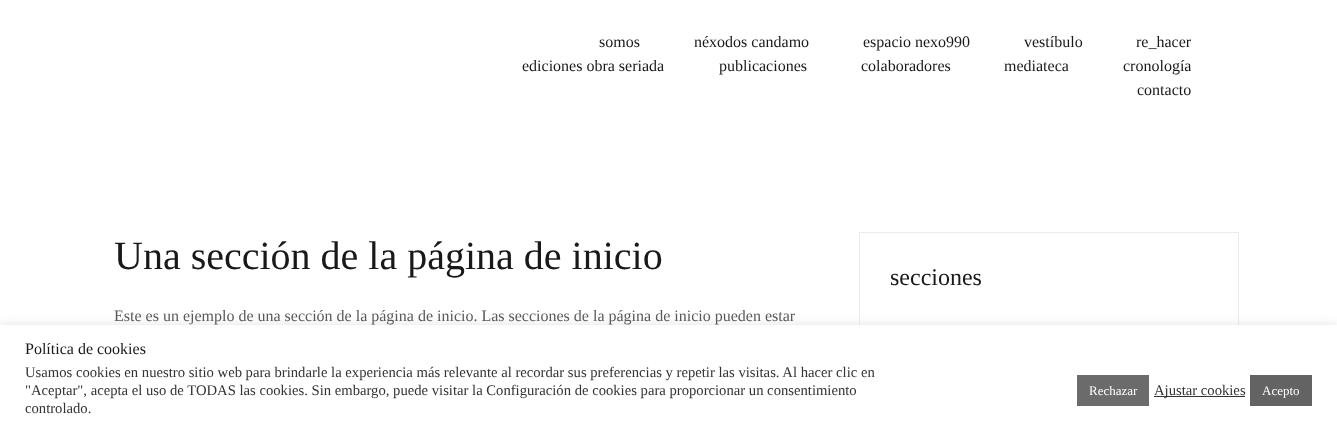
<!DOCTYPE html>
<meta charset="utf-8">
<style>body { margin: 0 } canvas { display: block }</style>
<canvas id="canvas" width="1337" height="431"></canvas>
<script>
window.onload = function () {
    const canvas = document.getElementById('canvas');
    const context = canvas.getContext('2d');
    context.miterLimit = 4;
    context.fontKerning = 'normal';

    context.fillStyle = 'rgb(255, 255, 255)';
    context.fillRect(0, 0, 1337, 431);
    context.strokeStyle = 'rgb(235, 235, 235)';
    context.strokeRect(859.5, 232.5, 379, 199);
    context.fillStyle = 'rgba(172, 171, 171, 0.3)';
    context.filter = 'blur(5px)';
    context.beginPath();
    context.rect(0, 324, 1337, 106);
    context.fill();
    context.filter = 'none';
    context.fillStyle = 'rgb(255, 255, 255)';
    context.fillRect(0, 325, 1337, 106);
    context.fillStyle = 'rgb(107, 107, 107)';
    context.fillRect(1077, 375, 72, 31);
    context.fillStyle = 'rgb(51, 51, 51)';
    context.fillRect(1154, 396, 91, 1);
    context.fillStyle = 'rgb(99, 99, 99)';
    context.fillRect(1250, 375, 62, 31);
    context.font = '16px Liberation Serif';
    context.fillStyle = 'rgb(25, 25, 25)';
    context.fillText('somos', 599, 47);
    context.fillText('néxodos candamo', 694, 47);
    context.fillText('espacio nexo990', 863, 47);
    context.fillText('vestíbulo', 1024, 47);
    context.fillText('re_hacer', 1136, 47);
    context.fillText('ediciones obra seriada', 522, 71);
    context.fillText('publicaciones', 719, 71);
    context.fillText('colaboradores', 861, 71);
    context.fillText('mediateca', 1004, 71);
    context.fillText('cronología', 1123, 71);
    context.fillText('contacto', 1137, 95);
    context.font = '40px Liberation Serif';
    context.fillText('Una sección de la página de inicio', 114, 269);
    context.font = '16px Liberation Serif';
    context.fillStyle = 'rgb(89, 89, 89)';
    context.fillText('Este es un ejemplo de una sección de la página de inicio. Las secciones de la página de inicio pueden estar', 114, 321);
    context.font = '24px Liberation Serif';
    context.fillStyle = 'rgb(25, 25, 25)';
    context.fillText('secciones', 890, 285);
    context.font = '16px Liberation Serif';
    context.fillText('Política de cookies', 25, 354);
    context.font = '14.67px Liberation Serif';
    context.fillStyle = 'rgb(51, 51, 51)';
    context.fillText('Usamos cookies en nuestro sitio web para brindarle la experiencia más relevante al recordar sus preferencias y repetir las visitas. Al hacer clic en', 25, 377);
    context.fillText('"Aceptar", acepta el uso de TODAS las cookies. Sin embargo, puede visitar la Configuración de cookies para proporcionar un consentimiento', 25, 395);
    context.fillText('controlado.', 25, 413);
    context.font = '13px Liberation Serif';
    context.fillStyle = 'rgb(255, 255, 255)';
    context.fillText('Rechazar', 1089, 395);
    context.font = '14.67px Liberation Serif';
    context.fillStyle = 'rgb(51, 51, 51)';
    context.fillText('Ajustar cookies', 1154, 395);
    context.font = '13px Liberation Serif';
    context.fillStyle = 'rgb(255, 255, 255)';
    context.fillText('Acepto', 1262, 395);
};
</script>
